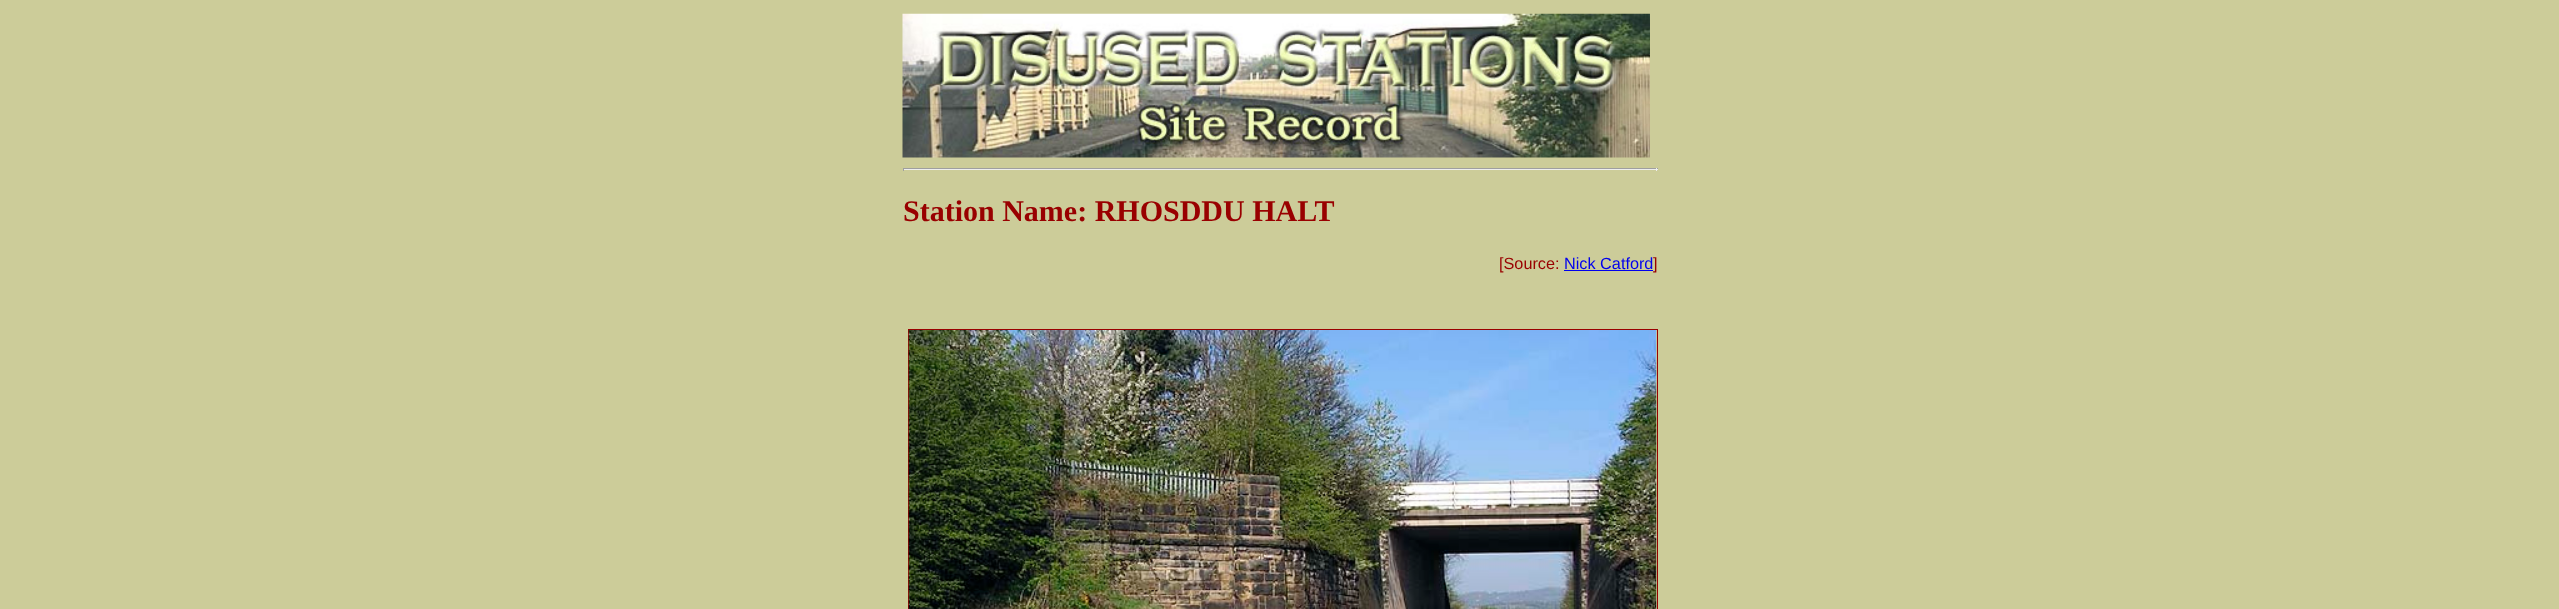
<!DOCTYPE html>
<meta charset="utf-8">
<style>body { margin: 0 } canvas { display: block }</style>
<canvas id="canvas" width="2559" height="609"></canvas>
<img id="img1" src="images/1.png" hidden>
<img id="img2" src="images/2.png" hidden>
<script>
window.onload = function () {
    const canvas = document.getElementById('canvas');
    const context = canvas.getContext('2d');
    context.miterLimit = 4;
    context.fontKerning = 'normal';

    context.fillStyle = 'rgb(204, 204, 153)';
    context.fillRect(0, 0, 2559, 609);
    context.drawImage(document.getElementById('img1'), 902, 13, 748, 145);
    context.fillStyle = 'rgb(159, 159, 159)';
    context.fillRect(903, 168, 755, 1);
    context.fillStyle = 'rgb(238, 238, 238)';
    context.fillRect(1656, 168, 1, 3);
    context.fillRect(903, 169, 755, 1);
    context.fillStyle = 'rgb(159, 159, 159)';
    context.fillRect(903, 168, 1, 3);
    context.fillStyle = 'rgb(0, 0, 238)';
    context.fillRect(1564, 270, 89, 1);
    context.strokeStyle = 'rgb(153, 0, 0)';
    context.strokeRect(908.5, 329.5, 749, 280);
    context.drawImage(document.getElementById('img2'), 908, 330, 749, 279);
    context.font = 'bold 30px Liberation Serif';
    context.fillStyle = 'rgb(153, 0, 0)';
    context.fillText('Station Name: RHOSDDU HALT', 903, 221);
    context.font = '16.25px Liberation Sans';
    context.fillText('[Source:', 1499, 269);
    context.fillStyle = 'rgb(0, 0, 238)';
    context.fillText('Nick Catford', 1564, 269);
    context.fillStyle = 'rgb(153, 0, 0)';
    context.fillText(']', 1653, 269);
};
</script>
